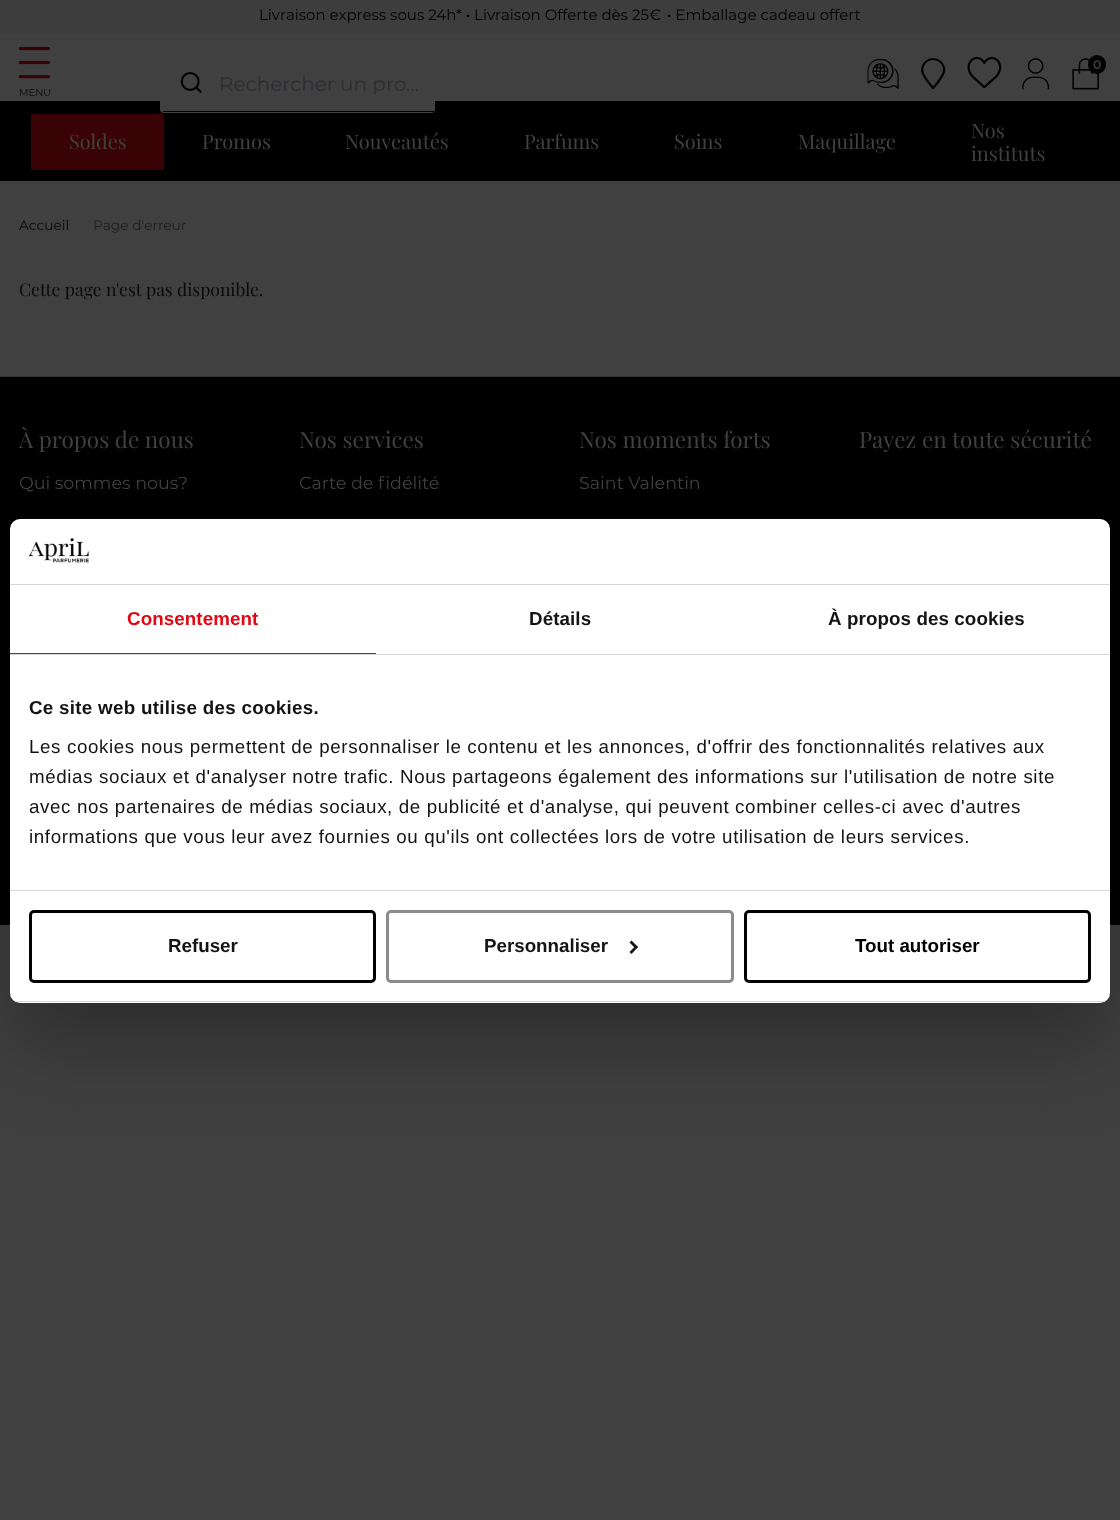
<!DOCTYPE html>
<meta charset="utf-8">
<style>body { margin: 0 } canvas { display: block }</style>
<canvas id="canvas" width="1120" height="1520"></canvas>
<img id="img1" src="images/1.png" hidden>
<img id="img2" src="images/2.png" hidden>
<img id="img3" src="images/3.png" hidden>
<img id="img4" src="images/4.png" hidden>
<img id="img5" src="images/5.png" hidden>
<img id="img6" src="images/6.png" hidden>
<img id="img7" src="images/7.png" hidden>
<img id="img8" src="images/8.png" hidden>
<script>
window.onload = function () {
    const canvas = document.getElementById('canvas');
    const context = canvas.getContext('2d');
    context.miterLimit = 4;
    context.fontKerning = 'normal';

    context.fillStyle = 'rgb(64, 64, 64)';
    context.fillRect(0, 0, 1120, 1520);
    context.fillStyle = 'rgb(61, 61, 61)';
    context.fillRect(0, 0, 1120, 33);
    context.drawImage(document.getElementById('img1'), 867, 58, 32, 31);
    context.drawImage(document.getElementById('img2'), 921, 58, 25, 32);
    context.drawImage(document.getElementById('img3'), 967, 57, 35, 32);
    context.drawImage(document.getElementById('img4'), 1022, 58, 28, 32);
    context.drawImage(document.getElementById('img5'), 1072, 58, 27, 32);
    context.fillStyle = 'rgb(0, 0, 0)';
    context.beginPath();
    context.roundRect(1088, 55, 18, 19, 9);
    context.fill();
    context.drawImage(document.getElementById('img6'), 18, 46, 32, 33);
    context.fillRect(0, 101, 1120, 80);
    context.fillStyle = 'rgb(57, 2, 5)';
    context.fillRect(31, 114, 133, 56);
    context.fillStyle = 'rgb(64, 64, 64)';
    context.beginPath();
    context.roundRect(160, 56, 275, 57, 4);
    context.fill();
    context.fillStyle = 'rgb(0, 0, 0)';
    context.fillRect(163, 111, 271, 1);
    context.drawImage(document.getElementById('img7'), 180, 72, 22, 21);
    context.fillRect(0, 377, 1120, 548);
    context.fillStyle = 'rgb(52, 52, 52)';
    context.fillRect(0, 376, 1120, 1);
    context.fillStyle = 'rgba(0, 0, 0, 0.3)';
    context.filter = 'blur(42.5px)';
    context.beginPath();
    context.roundRect(10, 559, 1100, 484, 10);
    context.fill();
    context.filter = 'none';
    context.fillStyle = 'rgb(255, 255, 255)';
    context.beginPath();
    context.roundRect(10, 519, 1100, 484, 10);
    context.fill();
    context.fillStyle = 'rgb(214, 214, 214)';
    context.fillRect(10, 584, 1100, 1);
    context.drawImage(document.getElementById('img8'), 28, 538, 61, 25);
    context.fillRect(10, 654, 1100, 1);
    context.fillStyle = 'rgb(227, 6, 19)';
    context.fillRect(10, 653, 366, 1);
    context.fillStyle = 'rgb(214, 214, 214)';
    context.fillRect(10, 890, 1100, 1);
    context.save();
    context.beginPath();
    context.roundRect(10, 519, 1100, 484, 10);
    context.clip();
    context.fillRect(10, 1001, 1100, 1);
    context.restore();
    context.beginPath();
    context.roundRect(30.5, 911.5, 344, 70, 3.5);
    context.strokeStyle = 'rgb(0, 0, 0)';
    context.lineWidth = 3;
    context.stroke();
    context.beginPath();
    context.roundRect(387.5, 911.5, 345, 70, 3.5);
    context.strokeStyle = 'rgb(139, 139, 139)';
    context.stroke();
    context.fillStyle = 'rgb(20, 20, 20)';
    context.beginPath();
    context.moveTo(631.5, 940.5);
    context.lineTo(638, 947);
    context.lineTo(636, 949);
    context.lineTo(629.5, 942.5);
    context.closePath();
    context.fill();
    context.beginPath();
    context.moveTo(636, 945.5);
    context.lineTo(638, 947);
    context.lineTo(631.5, 954);
    context.lineTo(629.5, 952);
    context.closePath();
    context.fill();
    context.beginPath();
    context.roundRect(745.5, 911.5, 344, 70, 3.5);
    context.strokeStyle = 'rgb(0, 0, 0)';
    context.stroke();
    context.font = '15px Montserrat';
    context.fillStyle = 'rgb(0, 0, 0)';
    context.fillText('Livraison express sous 24h* • Livraison Offerte dès 25€', 259, 20);
    context.fillText('• Emballage cadeau offert', 667, 20);
    context.font = 'bold 12px Montserrat';
    context.fillStyle = 'rgb(64, 64, 64)';
    context.fillText('0', 1093, 69);
    context.font = '10px Montserrat';
    context.fillStyle = 'rgb(9, 9, 9)';
    context.fillText('MENU', 19, 96);
    context.font = '20px Playfair Display';
    context.fillStyle = 'rgb(64, 64, 64)';
    context.fillText('Soldes', 69, 149);
    context.fillText('Promos', 202, 149);
    context.fillText('Nouveautés', 345, 149);
    context.fillText('Parfums', 524, 149);
    context.fillText('Soins', 674, 149);
    context.fillText('Maquillage', 798, 149);
    context.fillText('Nos', 971, 138);
    context.fillText('instituts', 971, 161);
    context.font = '20px Montserrat';
    context.fillStyle = 'rgb(45, 45, 50)';
    context.fillText('Rechercher un pro…', 219, 91);
    context.font = '13.75px Montserrat';
    context.fillStyle = 'rgb(9, 9, 9)';
    context.fillText('Accueil', 19, 230);
    context.fillStyle = 'rgb(30, 30, 30)';
    context.fillText('Page d\'erreur', 93, 230);
    context.font = '17.5px Playfair Display';
    context.fillStyle = 'rgb(9, 9, 9)';
    context.fillText('Cette page n\'est pas disponible.', 19, 296);
    context.font = '22.5px Playfair Display';
    context.fillStyle = 'rgb(64, 64, 64)';
    context.fillText('À propos de nous', 19, 448);
    context.font = '17.5px Montserrat';
    context.fillText('Qui sommes nous?', 19, 489);
    context.font = '22.5px Playfair Display';
    context.fillText('Nos services', 299, 448);
    context.font = '17.5px Montserrat';
    context.fillText('Carte de fidélité', 299, 489);
    context.font = '22.5px Playfair Display';
    context.fillText('Nos moments forts', 579, 448);
    context.font = '17.5px Montserrat';
    context.fillText('Saint Valentin', 579, 489);
    context.font = '22.5px Playfair Display';
    context.fillText('Payez en toute sécurité', 859, 448);
    context.letterSpacing = '0.1px';
    context.font = 'bold 18.75px Liberation Sans';
    context.fillStyle = 'rgb(227, 6, 19)';
    context.fillText('Consentement', 127, 625);
    context.fillStyle = 'rgb(20, 20, 20)';
    context.fillText('Détails', 529, 625);
    context.fillText('À propos des cookies', 828, 625);
    context.letterSpacing = '0.3px';
    context.fillText('Ce site web utilise des cookies.', 29, 714);
    context.letterSpacing = '0.62px';
    context.font = '18.75px Liberation Sans';
    context.fillText('Les cookies nous permettent de personnaliser le contenu et les annonces, d\'offrir des fonctionnalités relatives aux', 29, 753);
    context.fillText('médias sociaux et d\'analyser notre trafic. Nous partageons également des informations sur l\'utilisation de notre site', 29, 783);
    context.fillText('avec nos partenaires de médias sociaux, de publicité et d\'analyse, qui peuvent combiner celles-ci avec d\'autres', 29, 813);
    context.fillText('informations que vous leur avez fournies ou qu\'ils ont collectées lors de votre utilisation de leurs services.', 29, 843);
    context.letterSpacing = '0px';
    context.font = 'bold 18.75px Liberation Sans';
    context.fillText('Refuser', 168, 952);
    context.fillText('Personnaliser', 484, 952);
    context.fillStyle = 'rgb(0, 0, 0)';
    context.fillText('Tout autoriser', 855, 952);
};
</script>
